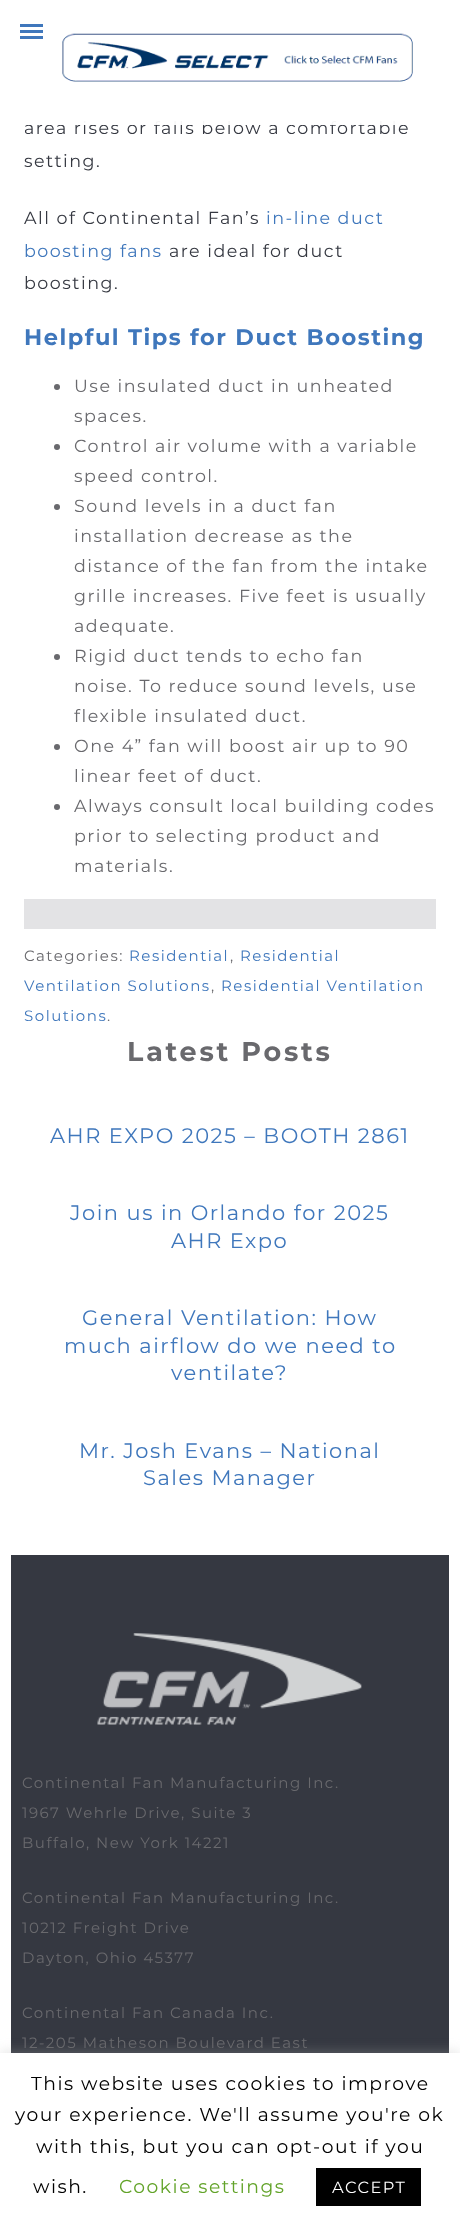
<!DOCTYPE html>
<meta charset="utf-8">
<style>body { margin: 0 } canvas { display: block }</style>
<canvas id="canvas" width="460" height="2227"></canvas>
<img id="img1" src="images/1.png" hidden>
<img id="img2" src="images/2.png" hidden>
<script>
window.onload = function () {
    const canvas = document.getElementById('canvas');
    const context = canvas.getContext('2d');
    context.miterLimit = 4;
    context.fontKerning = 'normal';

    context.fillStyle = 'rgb(255, 255, 255)';
    context.fillRect(0, 0, 460, 2227);
    context.fillStyle = 'rgb(63, 119, 188)';
    context.fillRect(20, 30, 23, 3);
    context.fillRect(20, 24, 23, 3);
    context.fillRect(20, 36, 23, 3);
    context.drawImage(document.getElementById('img1'), 62, 33, 351, 49);
    context.fillStyle = 'rgb(105, 105, 109)';
    context.beginPath();
    context.arc(57, 387, 3, 0, 2 * Math.PI);
    context.fill();
    context.beginPath();
    context.arc(57, 447, 3, 0, 2 * Math.PI);
    context.fill();
    context.beginPath();
    context.arc(57, 507, 3, 0, 2 * Math.PI);
    context.fill();
    context.beginPath();
    context.arc(57, 657, 3, 0, 2 * Math.PI);
    context.fill();
    context.beginPath();
    context.arc(57, 747, 3, 0, 2 * Math.PI);
    context.fill();
    context.beginPath();
    context.arc(57, 807, 3, 0, 2 * Math.PI);
    context.fill();
    context.fillStyle = 'rgb(227, 227, 229)';
    context.fillRect(24, 899, 412, 30);
    context.fillStyle = 'rgb(53, 56, 65)';
    context.fillRect(11, 1555, 438, 498);
    context.drawImage(document.getElementById('img2'), 97, 1633, 265, 92);
    context.fillStyle = 'rgba(172, 171, 171, 0.3)';
    context.filter = 'blur(6px)';
    context.beginPath();
    context.rect(0, 2051, 460, 175);
    context.fill();
    context.filter = 'none';
    context.fillStyle = 'rgb(255, 255, 255)';
    context.fillRect(0, 2053, 460, 174);
    context.fillStyle = 'rgb(0, 0, 0)';
    context.fillRect(316, 2168, 105, 38);
    context.letterSpacing = '1.5px';
    context.font = '17.5px Montserrat';
    context.fillStyle = 'rgb(53, 56, 65)';
    context.fillText('area rises or falls below a comfortable', 24, 134);
    context.fillStyle = 'rgba(255, 255, 255, 0.95)';
    context.fillRect(27, 120, 378, 5);
    context.fillStyle = 'rgb(53, 56, 65)';
    context.fillText('setting.', 24, 167);
    context.fillText('All of Continental Fan’s', 24, 224);
    context.fillStyle = 'rgb(63, 119, 188)';
    context.fillText('in-line duct', 266, 224);
    context.fillText('boosting fans', 24, 257);
    context.fillStyle = 'rgb(53, 56, 65)';
    context.fillText('are ideal for duct', 169, 257);
    context.fillText('boosting.', 24, 289);
    context.font = 'bold 22.5px Montserrat';
    context.fillStyle = 'rgb(63, 119, 188)';
    context.fillText('Helpful Tips for Duct Boosting', 24, 345);
    context.font = '17.5px Montserrat';
    context.fillStyle = 'rgb(105, 105, 109)';
    context.fillText('Use insulated duct in unheated', 74, 392);
    context.fillText('spaces.', 74, 422);
    context.fillText('Control air volume with a variable', 74, 452);
    context.fillText('speed control.', 74, 482);
    context.fillText('Sound levels in a duct fan', 74, 512);
    context.fillText('installation decrease as the', 74, 542);
    context.fillText('distance of the fan from the intake', 74, 572);
    context.fillText('grille increases. Five feet is usually', 74, 602);
    context.fillText('adequate.', 74, 632);
    context.fillText('Rigid duct tends to echo fan', 74, 662);
    context.fillText('noise. To reduce sound levels, use', 74, 692);
    context.fillText('flexible insulated duct.', 74, 722);
    context.fillText('One 4” fan will boost air up to 90', 74, 752);
    context.fillText('linear feet of duct.', 74, 782);
    context.fillText('Always consult local building codes', 74, 812);
    context.fillText('prior to selecting product and', 74, 842);
    context.fillText('materials.', 74, 872);
    context.font = '15px Montserrat';
    context.fillText('Categories:', 24, 961);
    context.fillStyle = 'rgb(63, 119, 188)';
    context.fillText('Residential', 129, 961);
    context.fillStyle = 'rgb(105, 105, 109)';
    context.fillText(',', 230, 961);
    context.fillStyle = 'rgb(63, 119, 188)';
    context.fillText('Residential', 240, 961);
    context.fillText('Ventilation Solutions', 24, 991);
    context.fillStyle = 'rgb(105, 105, 109)';
    context.fillText(',', 211, 991);
    context.fillStyle = 'rgb(63, 119, 188)';
    context.fillText('Residential Ventilation', 221, 991);
    context.fillText('Solutions', 24, 1021);
    context.fillStyle = 'rgb(105, 105, 109)';
    context.fillText('.', 107, 1021);
    context.letterSpacing = '2.75px';
    context.font = 'bold 27px Montserrat';
    context.fillText('Latest Posts', 127, 1061);
    context.letterSpacing = '1.5px';
    context.font = '21px Montserrat';
    context.fillStyle = 'rgb(63, 119, 188)';
    context.fillText('AHR EXPO 2025 – BOOTH 2861', 50, 1143);
    context.fillText('Join us in Orlando for 2025', 70, 1220);
    context.fillText('AHR Expo', 171, 1248);
    context.fillText('General Ventilation: How', 82, 1325);
    context.fillText('much airflow do we need to', 64, 1353);
    context.fillText('ventilate?', 171, 1380);
    context.fillText('Mr. Josh Evans – National', 79, 1458);
    context.fillText('Sales Manager', 143, 1485);
    context.font = '15px Montserrat';
    context.fillStyle = 'rgb(105, 105, 109)';
    context.fillText('Continental Fan Manufacturing Inc.', 22, 1788);
    context.fillText('1967 Wehrle Drive, Suite 3', 22, 1818);
    context.fillText('Buffalo, New York 14221', 22, 1848);
    context.fillText('Continental Fan Manufacturing Inc.', 22, 1903);
    context.fillText('10212 Freight Drive', 22, 1933);
    context.fillText('Dayton, Ohio 45377', 22, 1963);
    context.fillText('Continental Fan Canada Inc.', 22, 2018);
    context.fillText('12-205 Matheson Boulevard East', 22, 2048);
    context.font = '18.75px Montserrat';
    context.fillStyle = 'rgb(0, 0, 0)';
    context.fillText('This website uses cookies to improve', 31, 2090);
    context.fillText('your experience. We\'ll assume you\'re ok', 15, 2121);
    context.fillText('with this, but you can opt-out if you', 36, 2153);
    context.fillText('wish.', 33, 2193);
    context.fillStyle = 'rgb(98, 163, 41)';
    context.fillText('Cookie settings', 119, 2193);
    context.font = '16.25px Montserrat';
    context.fillStyle = 'rgb(255, 255, 255)';
    context.fillText('ACCEPT', 332, 2193);
};
</script>
